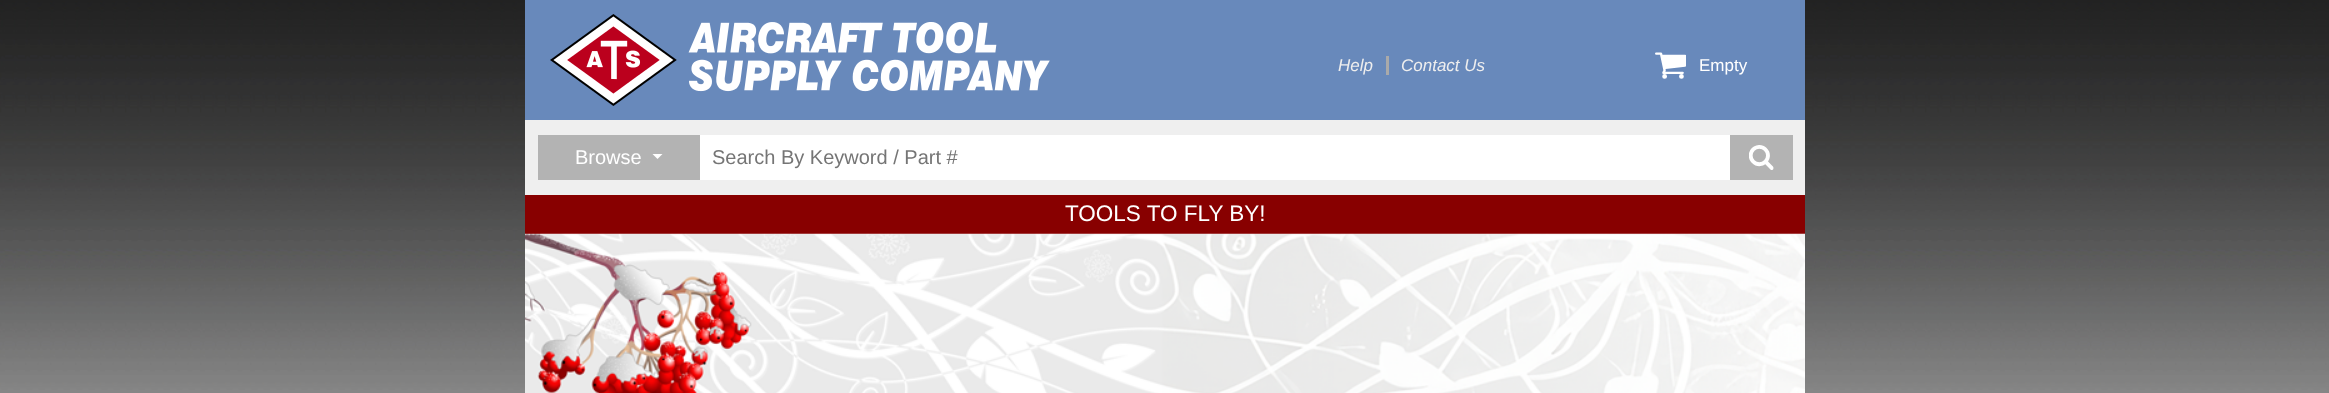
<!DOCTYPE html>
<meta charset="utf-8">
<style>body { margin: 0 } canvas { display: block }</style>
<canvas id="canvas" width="2329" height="393"></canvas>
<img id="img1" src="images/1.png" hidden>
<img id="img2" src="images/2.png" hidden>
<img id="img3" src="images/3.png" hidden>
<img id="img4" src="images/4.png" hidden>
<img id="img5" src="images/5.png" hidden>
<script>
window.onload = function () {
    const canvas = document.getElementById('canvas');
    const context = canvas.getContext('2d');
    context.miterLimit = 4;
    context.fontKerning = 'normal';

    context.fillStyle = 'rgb(255, 255, 255)';
    context.fillRect(0, 0, 2329, 393);
    context.drawImage(document.getElementById('img1'), 0, 0, 2329, 393);
    context.fillStyle = 'rgb(104, 137, 187)';
    context.fillRect(525, 0, 1280, 120);
    context.drawImage(document.getElementById('img2'), 550, 14, 500, 92);
    context.fillStyle = 'rgb(170, 170, 170)';
    context.fillRect(1386, 56, 3, 19);
    context.drawImage(document.getElementById('img3'), 1655, 52, 31, 27);
    context.fillStyle = 'rgb(239, 239, 239)';
    context.fillRect(525, 120, 1280, 75);
    context.fillStyle = 'rgb(179, 179, 179)';
    context.fillRect(538, 135, 162, 45);
    context.fillStyle = 'rgb(255, 255, 255)';
    context.beginPath();
    context.moveTo(652.5, 154);
    context.lineTo(662.5, 154);
    context.lineTo(657.5, 159);
    context.closePath();
    context.fill();
    context.fillRect(700, 135, 1030, 45);
    context.fillStyle = 'rgb(179, 179, 179)';
    context.fillRect(1730, 135, 63, 45);
    context.drawImage(document.getElementById('img4'), 1749, 145, 25, 25);
    context.fillStyle = 'rgb(136, 0, 0)';
    context.fillRect(525, 195, 1280, 39);
    context.drawImage(document.getElementById('img5'), 525, 233, 1280, 160);
    context.font = 'italic 17px Liberation Sans';
    context.fillStyle = 'rgb(238, 238, 238)';
    context.fillText('Help', 1338, 71);
    context.fillText('Contact Us', 1401, 71);
    context.font = '17px Liberation Sans';
    context.fillStyle = 'rgb(255, 255, 255)';
    context.fillText('Empty', 1699, 71);
    context.font = '20px Liberation Sans';
    context.fillText('Browse', 575, 164);
    context.fillStyle = 'rgb(117, 117, 117)';
    context.fillText('Search By Keyword / Part #', 712, 164);
    context.font = '22.5px Liberation Sans';
    context.fillStyle = 'rgb(255, 255, 255)';
    context.fillText('TOOLS TO FLY BY!', 1065, 221);
};
</script>
